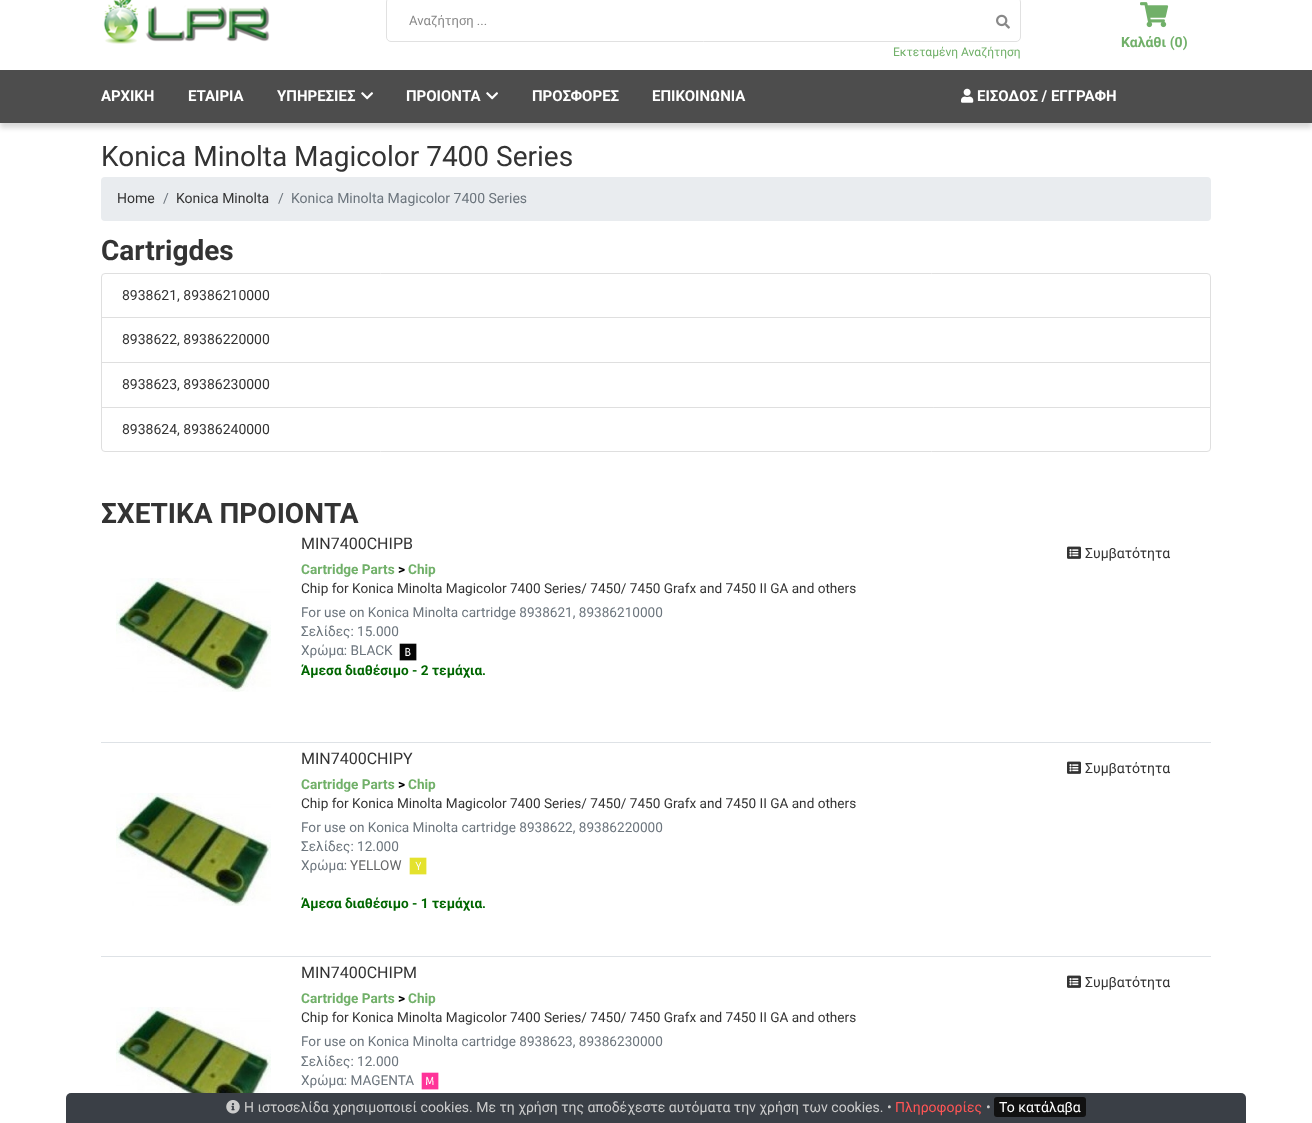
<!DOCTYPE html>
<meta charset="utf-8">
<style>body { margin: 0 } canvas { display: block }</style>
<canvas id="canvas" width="1312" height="1123"></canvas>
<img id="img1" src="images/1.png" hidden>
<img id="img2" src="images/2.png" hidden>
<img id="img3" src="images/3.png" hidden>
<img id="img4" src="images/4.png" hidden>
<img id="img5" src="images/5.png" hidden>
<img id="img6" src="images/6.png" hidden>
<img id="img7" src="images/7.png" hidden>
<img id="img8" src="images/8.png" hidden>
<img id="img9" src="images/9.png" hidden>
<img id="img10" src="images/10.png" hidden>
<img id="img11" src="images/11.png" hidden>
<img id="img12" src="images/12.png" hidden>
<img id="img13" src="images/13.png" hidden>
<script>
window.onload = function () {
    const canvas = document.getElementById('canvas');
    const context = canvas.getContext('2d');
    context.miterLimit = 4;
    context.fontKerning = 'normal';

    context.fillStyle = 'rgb(255, 255, 255)';
    context.fillRect(0, 0, 1312, 1123);
    context.drawImage(document.getElementById('img1'), 103, 0, 167, 44);
    context.beginPath();
    context.roundRect(386.5, -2.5, 634, 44, 4.5);
    context.strokeStyle = 'rgb(225, 225, 225)';
    context.stroke();
    context.drawImage(document.getElementById('img2'), 996, 14, 14, 15);
    context.drawImage(document.getElementById('img3'), 1140, 2, 29, 26);
    context.fillStyle = 'rgba(0, 0, 0, 0.15)';
    context.filter = 'blur(2.5px)';
    context.beginPath();
    context.rect(0, 75, 1312, 53);
    context.fill();
    context.filter = 'none';
    context.fillStyle = 'rgb(77, 77, 77)';
    context.fillRect(0, 70, 1312, 53);
    context.drawImage(document.getElementById('img4'), 361, 92, 12, 8);
    context.drawImage(document.getElementById('img4'), 486, 92, 12, 8);
    context.drawImage(document.getElementById('img5'), 961, 88, 13, 15);
    context.fillStyle = 'rgb(233, 236, 239)';
    context.beginPath();
    context.roundRect(101, 177, 1110, 44, 4);
    context.fill();
    context.beginPath();
    context.roundRect(101.5, 273.5, 1109, 44, [3.5, 3.5, 0, 0]);
    context.strokeStyle = 'rgb(223, 223, 223)';
    context.stroke();
    context.strokeRect(101.5, 317.5, 1109, 45);
    context.strokeRect(101.5, 362.5, 1109, 45);
    context.fillStyle = 'rgb(255, 255, 255)';
    context.beginPath();
    context.roundRect(101.5, 407.5, 1109, 44, [0, 0, 3.5, 3.5]);
    context.fill();
    context.stroke();
    context.fillStyle = 'rgb(222, 226, 230)';
    context.fillRect(101, 742, 1110, 1);
    context.drawImage(document.getElementById('img6'), 399, 643, 18, 18);
    context.drawImage(document.getElementById('img7'), 1067, 546, 14, 13);
    context.drawImage(document.getElementById('img8'), 116, 578, 155, 114);
    context.fillRect(101, 956, 1110, 1);
    context.drawImage(document.getElementById('img9'), 409, 857, 18, 18);
    context.drawImage(document.getElementById('img7'), 1067, 761, 14, 13);
    context.drawImage(document.getElementById('img10'), 116, 793, 155, 113);
    context.drawImage(document.getElementById('img11'), 421, 1072, 18, 18);
    context.drawImage(document.getElementById('img7'), 1067, 975, 14, 13);
    context.drawImage(document.getElementById('img12'), 116, 1007, 155, 86);
    context.fillStyle = 'rgb(58, 63, 70)';
    context.beginPath();
    context.roundRect(66, 1093, 1180, 30, [5, 5, 0, 0]);
    context.fill();
    context.drawImage(document.getElementById('img13'), 226, 1100, 14, 14);
    context.fillStyle = 'rgb(17, 17, 17)';
    context.beginPath();
    context.roundRect(994, 1097, 92, 20, 3);
    context.fill();
    context.font = '13px Roboto';
    context.fillStyle = 'rgb(136, 136, 136)';
    context.fillText('Αναζήτηση ...', 409, 25);
    context.font = '12px Roboto';
    context.fillStyle = 'rgb(113, 176, 105)';
    context.fillText('Εκτεταμένη Αναζήτηση', 893, 56);
    context.font = 'bold 14px Roboto';
    context.fillText('Καλάθι (0)', 1121, 47);
    context.font = 'bold 15px Roboto';
    context.fillStyle = 'rgb(255, 255, 255)';
    context.fillText('ΑΡΧΙΚΗ', 101, 101);
    context.fillText('ΕΤΑΙΡΙΑ', 188, 101);
    context.fillText('ΥΠΗΡΕΣΙΕΣ', 277, 101);
    context.fillText('ΠΡΟΙΟΝΤΑ', 406, 101);
    context.fillText('ΠΡΟΣΦΟΡΕΣ', 532, 101);
    context.fillText('ΕΠΙΚΟΙΝΩΝΙΑ', 652, 101);
    context.fillText('ΕΙΣΟΔΟΣ / ΕΓΓΡΑΦΗ', 977, 101);
    context.font = '28px Roboto';
    context.fillStyle = 'rgb(51, 51, 51)';
    context.fillText('Konica Minolta Magicolor 7400 Series', 101, 166);
    context.font = '14px Roboto';
    context.fillText('Home', 117, 203);
    context.fillStyle = 'rgb(108, 117, 125)';
    context.fillText('/', 163, 203);
    context.fillStyle = 'rgb(51, 51, 51)';
    context.fillText('Konica Minolta', 176, 203);
    context.fillStyle = 'rgb(108, 117, 125)';
    context.fillText('/', 278, 203);
    context.fillText('Konica Minolta Magicolor 7400 Series', 291, 203);
    context.font = 'bold 28px Roboto';
    context.fillStyle = 'rgb(51, 51, 51)';
    context.fillText('Cartrigdes', 101, 260);
    context.font = '14px Roboto';
    context.fillText('8938621, 89386210000', 122, 300);
    context.fillText('8938622, 89386220000', 122, 344);
    context.fillText('8938623, 89386230000', 122, 389);
    context.fillText('8938624, 89386240000', 122, 434);
    context.font = 'bold 28px Roboto';
    context.fillText('ΣΧΕΤΙΚΑ ΠΡΟΙΟΝΤΑ', 101, 523);
    context.font = '16px Roboto';
    context.fillText('MIN7400CHIPB', 301, 549);
    context.font = 'bold 13.6px Roboto';
    context.fillStyle = 'rgb(113, 176, 105)';
    context.fillText('Cartridge Parts', 301, 574);
    context.fillStyle = 'rgb(0, 0, 0)';
    context.fillText('>', 398, 574);
    context.fillStyle = 'rgb(113, 176, 105)';
    context.fillText('Chip', 408, 574);
    context.font = '13.6px Roboto';
    context.fillStyle = 'rgb(51, 51, 51)';
    context.fillText('Chip for Konica Minolta Magicolor 7400 Series/ 7450/ 7450 Grafx and 7450 II GA and others', 301, 593);
    context.fillStyle = 'rgb(108, 117, 125)';
    context.fillText('For use on Konica Minolta cartridge 8938621, 89386210000', 301, 617);
    context.fillText('Σελίδες: 15.000', 301, 636);
    context.fillText('Χρώμα: BLACK', 301, 655);
    context.font = 'bold 13.6px Roboto';
    context.fillStyle = 'rgb(0, 102, 0)';
    context.fillText('Άμεσα διαθέσιμο - 2 τεμάχια.', 301, 675);
    context.font = '14px Roboto';
    context.fillStyle = 'rgb(51, 51, 51)';
    context.fillText('Συμβατότητα', 1085, 558);
    context.font = '16px Roboto';
    context.fillText('MIN7400CHIPY', 301, 764);
    context.font = 'bold 13.6px Roboto';
    context.fillStyle = 'rgb(113, 176, 105)';
    context.fillText('Cartridge Parts', 301, 789);
    context.fillStyle = 'rgb(0, 0, 0)';
    context.fillText('>', 398, 789);
    context.fillStyle = 'rgb(113, 176, 105)';
    context.fillText('Chip', 408, 789);
    context.font = '13.6px Roboto';
    context.fillStyle = 'rgb(51, 51, 51)';
    context.fillText('Chip for Konica Minolta Magicolor 7400 Series/ 7450/ 7450 Grafx and 7450 II GA and others', 301, 808);
    context.fillStyle = 'rgb(108, 117, 125)';
    context.fillText('For use on Konica Minolta cartridge 8938622, 89386220000', 301, 832);
    context.fillText('Σελίδες: 12.000', 301, 851);
    context.fillText('Χρώμα:', 301, 870);
    context.fillStyle = 'rgb(102, 102, 102)';
    context.fillText('YELLOW', 350, 870);
    context.font = 'bold 13.6px Roboto';
    context.fillStyle = 'rgb(0, 102, 0)';
    context.fillText('Άμεσα διαθέσιμο - 1 τεμάχια.', 301, 908);
    context.font = '14px Roboto';
    context.fillStyle = 'rgb(51, 51, 51)';
    context.fillText('Συμβατότητα', 1085, 773);
    context.font = '16px Roboto';
    context.fillText('MIN7400CHIPM', 301, 978);
    context.font = 'bold 13.6px Roboto';
    context.fillStyle = 'rgb(113, 176, 105)';
    context.fillText('Cartridge Parts', 301, 1003);
    context.fillStyle = 'rgb(0, 0, 0)';
    context.fillText('>', 398, 1003);
    context.fillStyle = 'rgb(113, 176, 105)';
    context.fillText('Chip', 408, 1003);
    context.font = '13.6px Roboto';
    context.fillStyle = 'rgb(51, 51, 51)';
    context.fillText('Chip for Konica Minolta Magicolor 7400 Series/ 7450/ 7450 Grafx and 7450 II GA and others', 301, 1022);
    context.fillStyle = 'rgb(108, 117, 125)';
    context.fillText('For use on Konica Minolta cartridge 8938623, 89386230000', 301, 1046);
    context.fillText('Σελίδες: 12.000', 301, 1066);
    context.fillText('Χρώμα: MAGENTA', 301, 1085);
    context.font = '14px Roboto';
    context.fillStyle = 'rgb(51, 51, 51)';
    context.fillText('Συμβατότητα', 1085, 987);
    context.fillStyle = 'rgb(204, 204, 204)';
    context.fillText('Η ιστοσελίδα χρησιμοποιεί cookies. Με τη χρήση της αποδέχεστε αυτόματα την χρήση των cookies. •', 244, 1112);
    context.fillStyle = 'rgb(255, 85, 85)';
    context.fillText('Πληροφορίες', 895, 1112);
    context.fillStyle = 'rgb(204, 204, 204)';
    context.fillText('•', 986, 1112);
    context.fillStyle = 'rgb(255, 255, 255)';
    context.fillText('Το κατάλαβα', 999, 1112);
};
</script>
